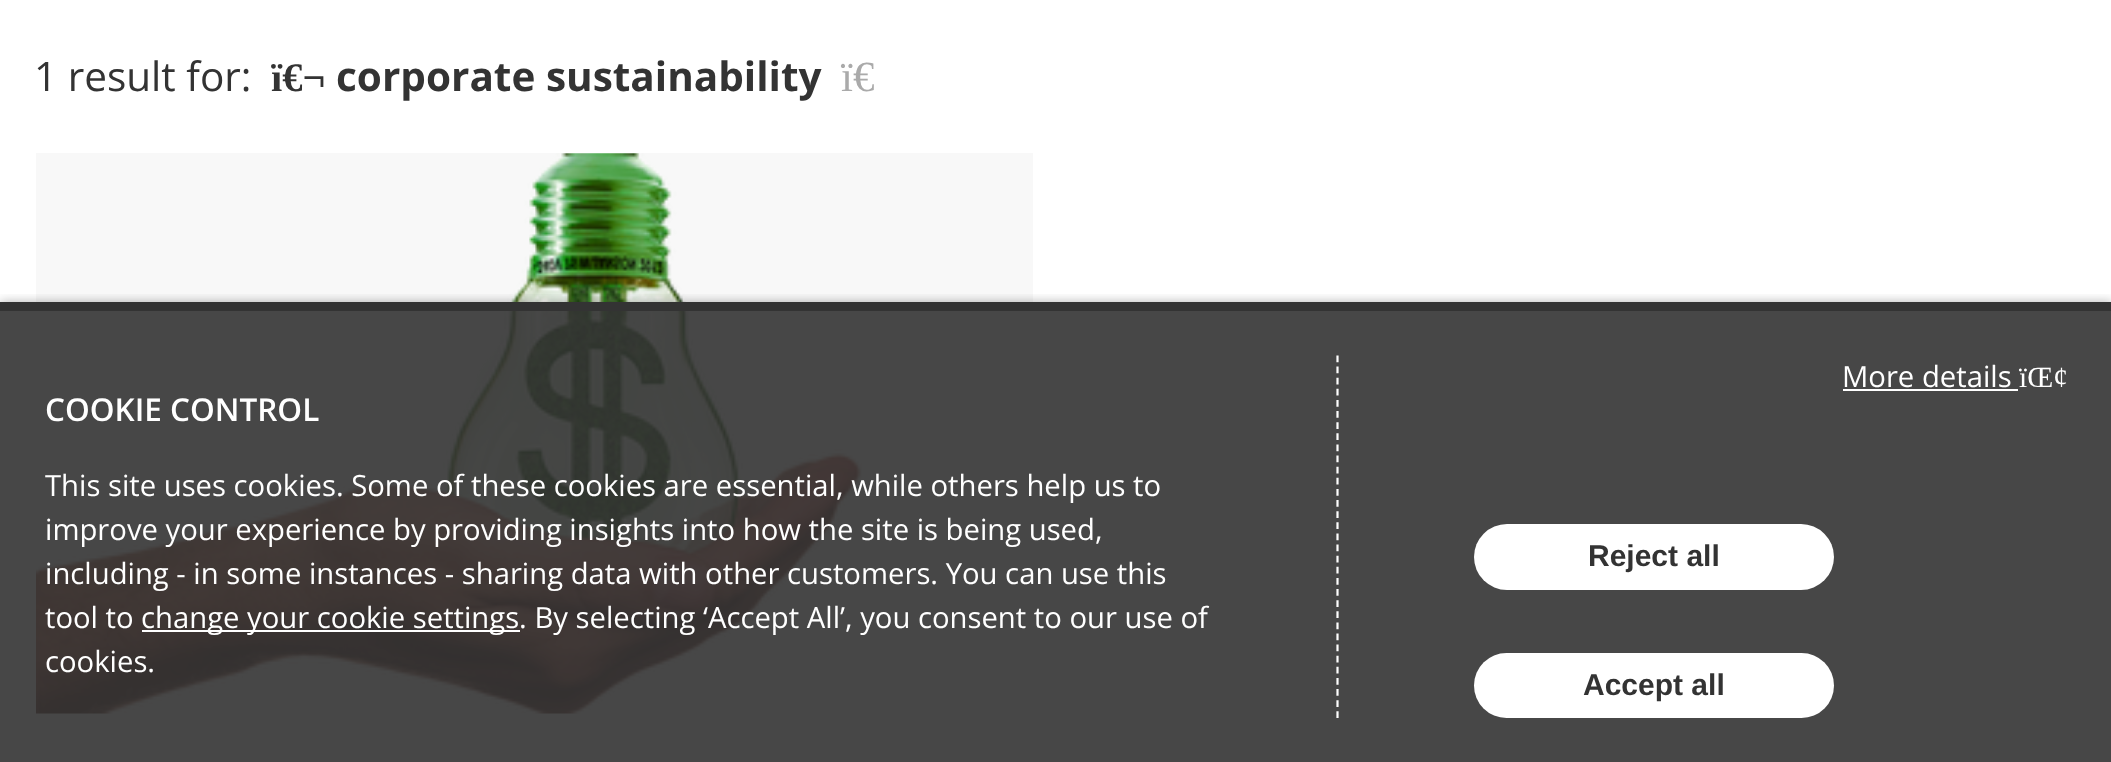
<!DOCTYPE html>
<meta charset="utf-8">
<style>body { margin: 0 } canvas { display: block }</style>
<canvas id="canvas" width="2111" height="762"></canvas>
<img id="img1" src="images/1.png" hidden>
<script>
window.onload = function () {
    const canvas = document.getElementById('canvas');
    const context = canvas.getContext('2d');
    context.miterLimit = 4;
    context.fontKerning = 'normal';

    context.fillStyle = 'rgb(255, 255, 255)';
    context.fillRect(0, 0, 2111, 762);
    context.fillStyle = 'rgb(248, 248, 248)';
    context.fillRect(36, 153, 997, 609);
    context.drawImage(document.getElementById('img1'), 36, 153, 826, 561);
    context.save();
    context.beginPath();
    context.rect(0, 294, 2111, 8);
    context.clip();
    context.fillStyle = 'rgba(0, 0, 0, 0.3)';
    context.filter = 'blur(5.5px)';
    context.beginPath();
    context.rect(0, 302, 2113, 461);
    context.fill();
    context.filter = 'none';
    context.restore();
    context.fillStyle = 'rgba(51, 51, 51, 0.9)';
    context.fillRect(0, 311, 2111, 451);
    context.fillStyle = 'rgb(51, 51, 51)';
    context.fillRect(0, 302, 2111, 9);
    context.fillStyle = 'rgb(255, 255, 255)';
    context.fillRect(1843, 389, 175, 2);
    context.beginPath();
    context.moveTo(1337.5, 355.5);
    context.lineTo(1337.5, 718);
    context.strokeStyle = 'rgb(255, 255, 255)';
    context.lineWidth = 2.2;
    context.setLineDash([6.75, 4.37]);
    context.stroke();
    context.fillRect(142, 630, 378, 2);
    context.beginPath();
    context.roundRect(1474, 524, 360, 66, 33);
    context.fill();
    context.beginPath();
    context.roundRect(1474, 653, 360, 65, 32.5);
    context.fill();
    context.font = '40.5px Open Sans';
    context.fillStyle = 'rgb(51, 51, 51)';
    context.fillText('1 result for:', 34, 91);
    context.font = 'bold 40.5px Liberation Serif';
    context.fillText('ï€¬', 271, 91);
    context.font = 'bold 40.5px Open Sans';
    context.fillText('corporate sustainability', 336, 91);
    context.font = '43px Liberation Serif';
    context.fillStyle = 'rgb(170, 170, 170)';
    context.fillText('ï€', 841, 91);
    context.font = '29.25px Open Sans';
    context.fillStyle = 'rgb(255, 255, 255)';
    context.fillText('More details', 1842, 387);
    context.font = '29.25px Liberation Serif';
    context.fillText('ïŒ¢', 2019, 387);
    context.font = '600 31.5px Open Sans';
    context.fillText('COOKIE CONTROL', 45, 421);
    context.font = '29.25px Open Sans';
    context.fillText('This site uses cookies. Some of these cookies are essential, while others help us to', 45, 496);
    context.fillText('improve your experience by providing insights into how the site is being used,', 45, 540);
    context.fillText('including - in some instances - sharing data with other customers. You can use this', 45, 584);
    context.fillText('tool to', 45, 628);
    context.fillText('change your cookie settings. By selecting ‘Accept All’, you consent to our use of', 141, 628);
    context.fillText('cookies.', 45, 672);
    context.font = 'bold 30px Liberation Sans';
    context.fillStyle = 'rgb(51, 51, 51)';
    context.fillText('Reject all', 1588, 566);
    context.fillText('Accept all', 1583, 695);
};
</script>
